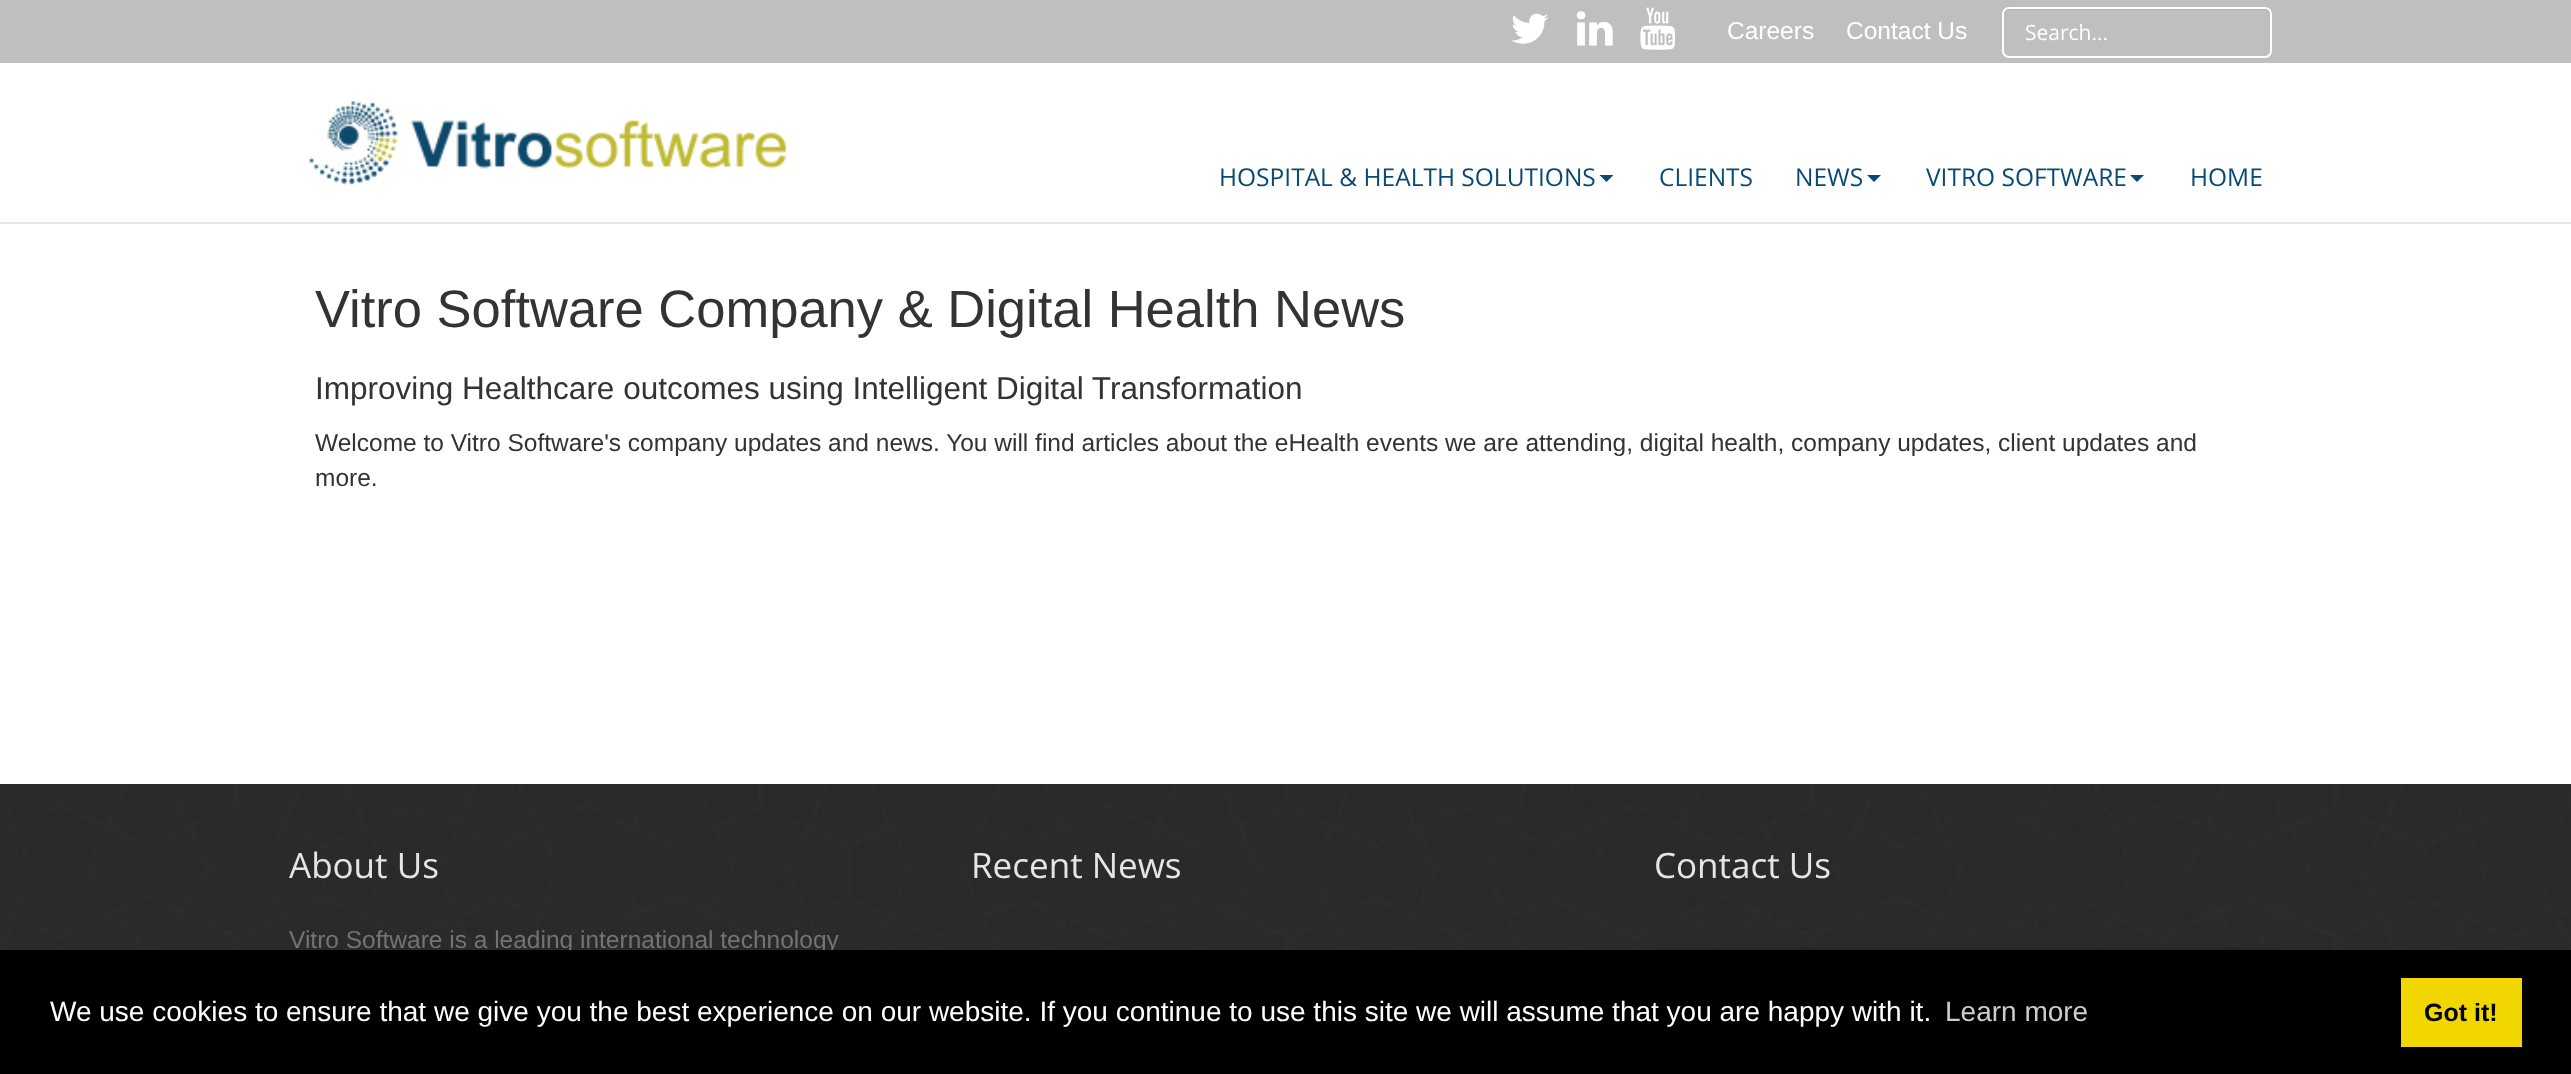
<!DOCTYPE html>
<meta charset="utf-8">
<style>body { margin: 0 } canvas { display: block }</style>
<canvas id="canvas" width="2571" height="1074"></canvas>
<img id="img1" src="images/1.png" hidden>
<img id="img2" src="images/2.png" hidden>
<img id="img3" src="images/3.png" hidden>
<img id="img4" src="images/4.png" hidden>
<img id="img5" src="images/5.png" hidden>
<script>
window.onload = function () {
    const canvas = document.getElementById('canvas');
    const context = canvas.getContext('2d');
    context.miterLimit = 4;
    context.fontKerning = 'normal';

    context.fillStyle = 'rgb(255, 255, 255)';
    context.fillRect(0, 0, 2571, 1074);
    context.fillStyle = 'rgb(231, 231, 231)';
    context.fillRect(0, 222, 2571, 2);
    context.fillStyle = 'rgb(191, 191, 191)';
    context.fillRect(0, 0, 2571, 63);
    context.drawImage(document.getElementById('img1'), 1511, 13, 37, 31);
    context.drawImage(document.getElementById('img2'), 1576, 11, 37, 35);
    context.drawImage(document.getElementById('img3'), 1640, 7, 36, 43);
    context.fillStyle = 'rgb(177, 177, 177)';
    context.beginPath();
    context.moveTo(2009, 10);
    context.lineTo(2264, 10);
    context.bezierCurveTo(2267, 10, 2270, 13, 2270, 16);
    context.lineTo(2270, 14);
    context.bezierCurveTo(2270, 11, 2268, 9, 2265, 9);
    context.lineTo(2009, 9);
    context.bezierCurveTo(2006, 9, 2004, 11, 2004, 14);
    context.lineTo(2004, 16);
    context.bezierCurveTo(2004, 13, 2006, 10, 2009, 10);
    context.closePath();
    context.fill();
    context.beginPath();
    context.roundRect(2003, 8, 268, 49, 6);
    context.strokeStyle = 'rgb(255, 255, 255)';
    context.lineWidth = 2;
    context.stroke();
    context.drawImage(document.getElementById('img4'), 309, 101, 478, 84);
    context.fillStyle = 'rgb(9, 74, 116)';
    context.beginPath();
    context.moveTo(1599.5, 175);
    context.lineTo(1613.5, 175);
    context.lineTo(1606.5, 182);
    context.closePath();
    context.fill();
    context.beginPath();
    context.moveTo(1867, 175);
    context.lineTo(1881, 175);
    context.lineTo(1874, 182);
    context.closePath();
    context.fill();
    context.beginPath();
    context.moveTo(2130, 175);
    context.lineTo(2144, 175);
    context.lineTo(2137, 182);
    context.closePath();
    context.fill();
    context.drawImage(document.getElementById('img5'), 0, 784, 2571, 166);
    context.fillStyle = 'rgb(38, 38, 38)';
    context.beginPath();
    context.roundRect(1654, 947, 630, 54, 11);
    context.fill();
    context.font = '24.5px Liberation Sans';
    context.fillStyle = 'rgb(255, 255, 255)';
    context.fillText('Careers', 1727, 39);
    context.fillText('Contact Us', 1846, 39);
    context.font = '21px Open Sans';
    context.fillText('Search...', 2025, 40);
    context.font = '24.5px Open Sans';
    context.fillStyle = 'rgb(9, 74, 116)';
    context.fillText('HOSPITAL & HEALTH SOLUTIONS', 1219, 186);
    context.fillText('CLIENTS', 1659, 186);
    context.fillText('NEWS', 1795, 186);
    context.fillText('VITRO SOFTWARE', 1926, 186);
    context.fillText('HOME', 2190, 186);
    context.font = '52.5px Liberation Sans';
    context.fillStyle = 'rgb(51, 51, 51)';
    context.fillText('Vitro Software Company & Digital Health News', 315, 327);
    context.font = '31.5px Liberation Sans';
    context.fillText('Improving Healthcare outcomes using Intelligent Digital Transformation', 315, 399);
    context.font = '24.5px Liberation Sans';
    context.fillText('Welcome to Vitro Software\'s company updates and news. You will find articles about the eHealth events we are attending, digital health, company updates, client updates and', 315, 451);
    context.fillText('more.', 315, 486);
    context.font = '35px Open Sans';
    context.fillStyle = 'rgb(229, 229, 229)';
    context.fillText('About Us', 289, 878);
    context.font = '24.5px Liberation Sans';
    context.fillStyle = 'rgb(115, 115, 115)';
    context.fillText('Vitro Software is a leading international technology', 289, 948);
    context.font = '35px Open Sans';
    context.fillStyle = 'rgb(229, 229, 229)';
    context.fillText('Recent News', 971, 878);
    context.fillText('Contact Us', 1654, 878);
    context.fillStyle = 'rgb(0, 0, 0)';
    context.fillRect(0, 950, 2571, 124);
    context.font = '28px Liberation Sans';
    context.fillStyle = 'rgb(255, 255, 255)';
    context.fillText('We use cookies to ensure that we give you the best experience on our website. If you continue to use this site we will assume that you are happy with it.', 50, 1021);
    context.fillStyle = 'rgb(204, 204, 204)';
    context.fillText('Learn more', 1945, 1021);
    context.fillStyle = 'rgb(241, 214, 0)';
    context.fillRect(2401, 978, 121, 69);
    context.font = 'bold 25px Liberation Sans';
    context.fillStyle = 'rgb(0, 0, 0)';
    context.fillText('Got it!', 2424, 1021);
};
</script>
